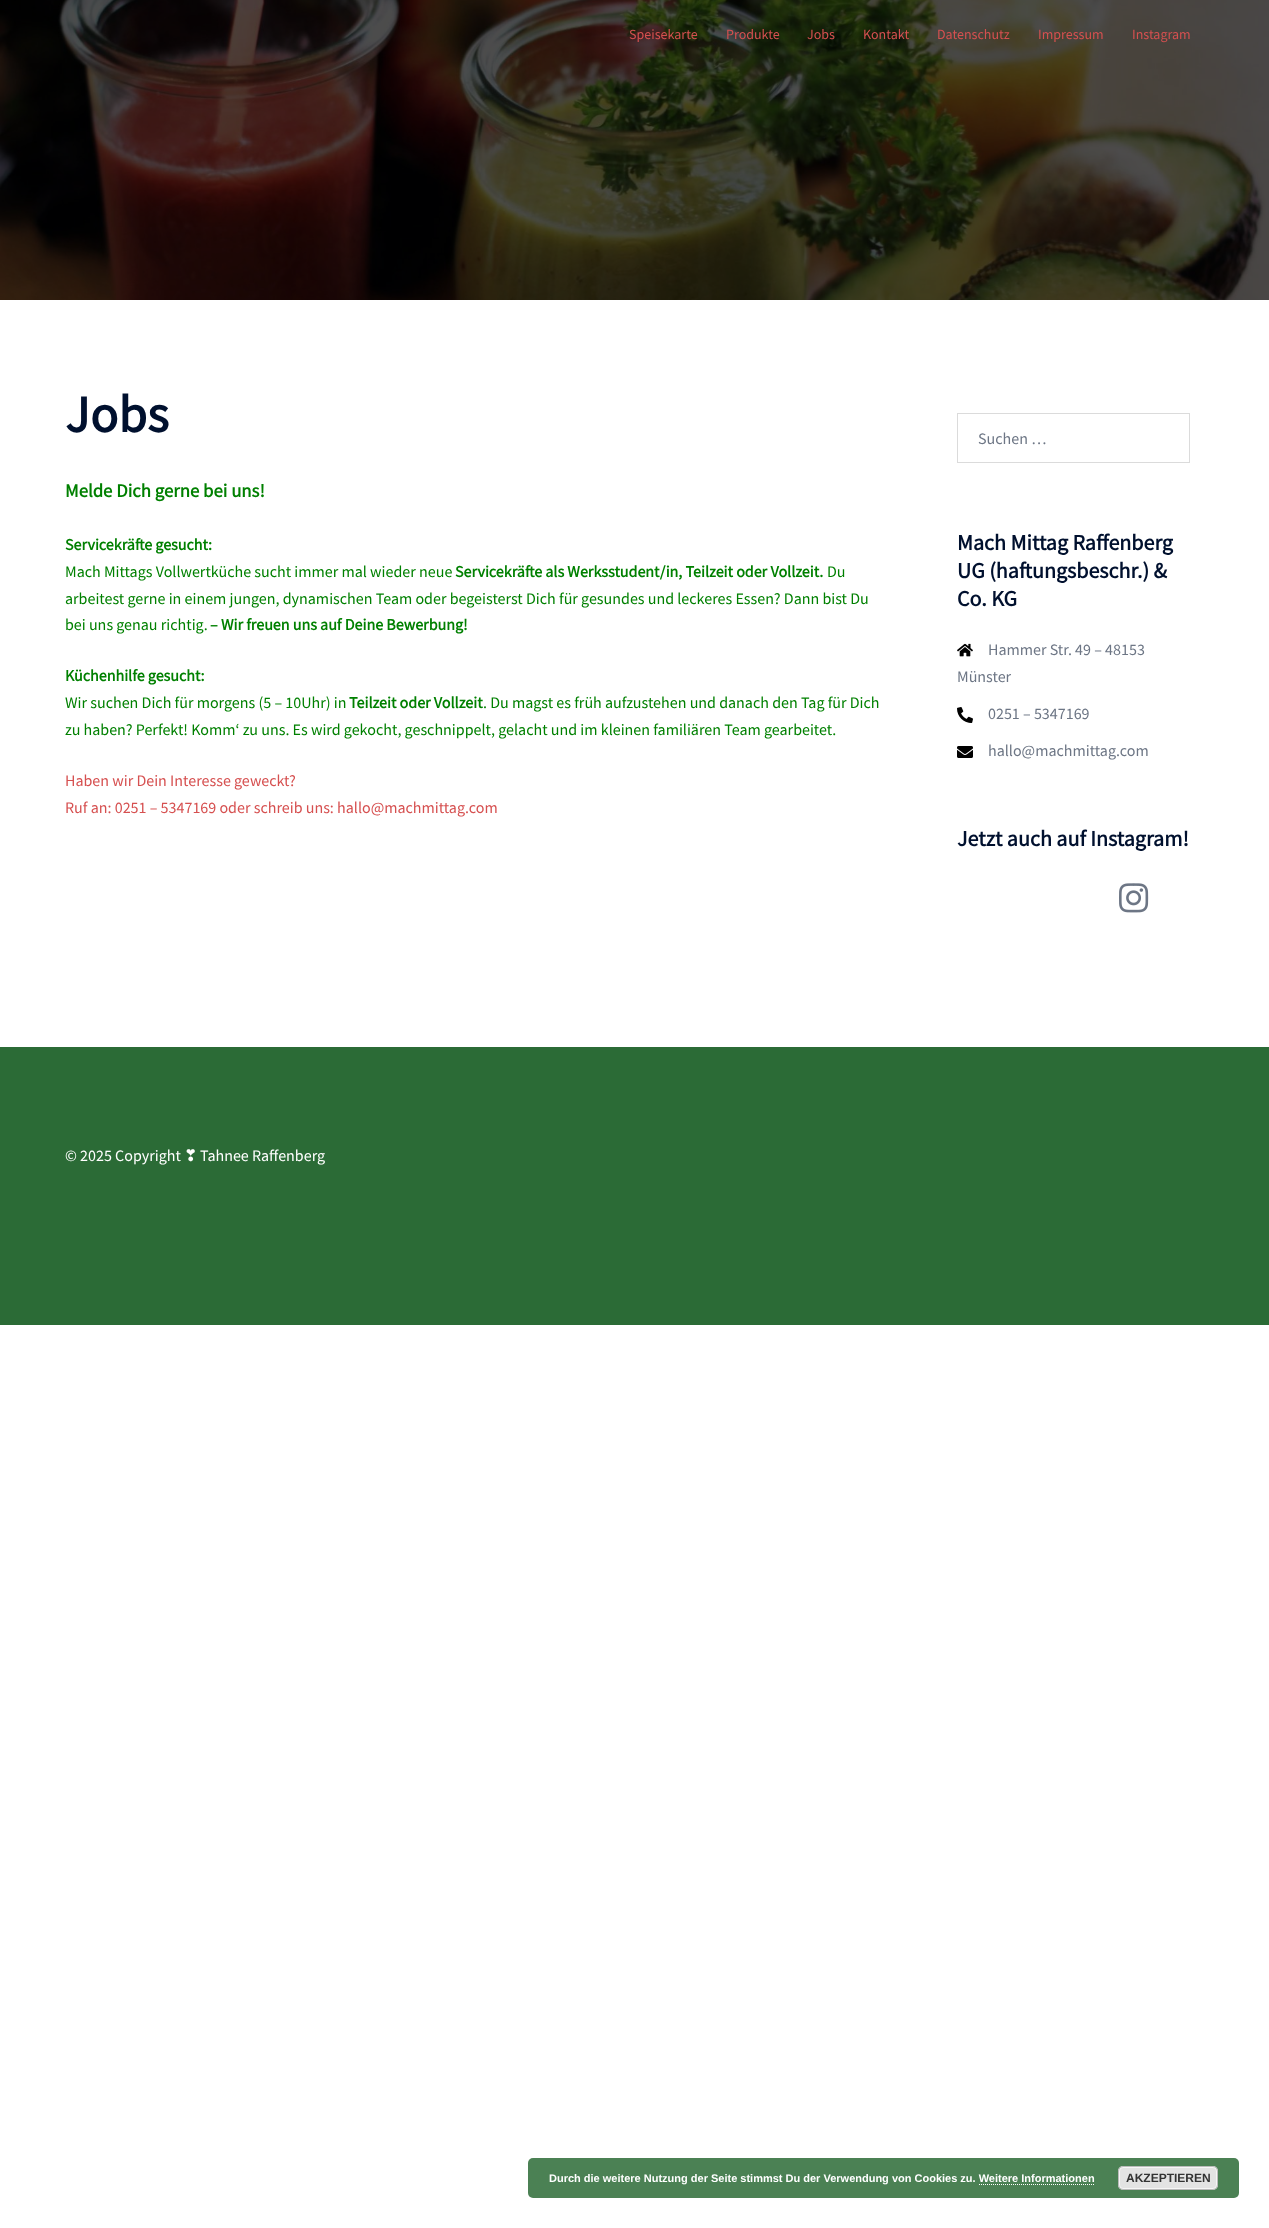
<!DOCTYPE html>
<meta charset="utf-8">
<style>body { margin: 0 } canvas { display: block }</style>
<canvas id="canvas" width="1269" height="2228"></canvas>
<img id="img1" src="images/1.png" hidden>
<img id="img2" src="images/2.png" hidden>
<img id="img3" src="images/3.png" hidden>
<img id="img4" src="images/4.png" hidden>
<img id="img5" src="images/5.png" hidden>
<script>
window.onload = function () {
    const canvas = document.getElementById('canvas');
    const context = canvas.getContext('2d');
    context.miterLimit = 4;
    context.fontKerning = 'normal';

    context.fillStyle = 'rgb(255, 255, 255)';
    context.fillRect(0, 0, 1269, 2228);
    context.drawImage(document.getElementById('img1'), 0, 0, 1269, 300);
    context.strokeStyle = 'rgb(219, 219, 219)';
    context.strokeRect(957.5, 413.5, 232, 49);
    context.drawImage(document.getElementById('img2'), 957, 643, 16, 14);
    context.drawImage(document.getElementById('img3'), 957, 707, 16, 16);
    context.drawImage(document.getElementById('img4'), 957, 746, 16, 12);
    context.drawImage(document.getElementById('img5'), 1119, 883, 30, 30);
    context.fillStyle = 'rgb(43, 107, 54)';
    context.fillRect(0, 1047, 1269, 278);
    context.fillStyle = 'rgb(75, 129, 84)';
    context.beginPath();
    context.roundRect(528, 2158, 711, 40, 5);
    context.fill();
    context.fillStyle = 'rgb(227, 227, 227)';
    context.beginPath();
    context.roundRect(1118, 2166, 100, 24, 5);
    context.fill();
    context.beginPath();
    context.roundRect(1119.5, 2167.5, 97, 21, 3.5);
    context.strokeStyle = 'rgb(246, 246, 246)';
    context.stroke();
    context.beginPath();
    context.roundRect(1118.5, 2166.5, 99, 23, 4.5);
    context.strokeStyle = 'rgb(187, 187, 187)';
    context.stroke();
    context.beginPath();
    context.moveTo(979, 2184.5);
    context.lineTo(1095, 2184.5);
    context.strokeStyle = 'rgb(255, 255, 255)';
    context.setLineDash([1, 1]);
    context.stroke();
    context.font = '14px Source Sans Pro';
    context.fillStyle = 'rgb(214, 80, 80)';
    context.fillText('Speisekarte', 629, 39);
    context.fillText('Produkte', 726, 39);
    context.fillText('Jobs', 807, 39);
    context.fillText('Kontakt', 863, 39);
    context.fillText('Datenschutz', 937, 39);
    context.fillText('Impressum', 1038, 39);
    context.fillText('Instagram', 1132, 39);
    context.font = 'bold 52px Source Sans Pro';
    context.fillStyle = 'rgb(0, 16, 46)';
    context.fillText('Jobs', 65, 432);
    context.font = 'bold 18.75px Source Sans Pro';
    context.fillStyle = 'rgb(0, 128, 0)';
    context.fillText('Melde Dich gerne bei uns!', 65, 497);
    context.font = 'bold 16px Source Sans Pro';
    context.fillText('Servicekräfte gesucht:', 65, 550);
    context.font = '16px Source Sans Pro';
    context.fillText('Mach Mittags Vollwertküche sucht immer mal wieder neue', 65, 577);
    context.font = 'bold 16px Source Sans Pro';
    context.fillText('Servicekräfte als Werksstudent/in, Teilzeit oder Vollzeit.', 455, 577);
    context.font = '16px Source Sans Pro';
    context.fillText('Du', 827, 577);
    context.fillText('arbeitest gerne in einem jungen, dynamischen Team oder begeisterst Dich für gesundes und leckeres Essen? Dann bist Du', 65, 604);
    context.fillText('bei uns genau richtig.', 65, 630);
    context.font = 'bold 16px Source Sans Pro';
    context.fillText('– Wir freuen uns auf Deine Bewerbung!', 210, 630);
    context.fillText('Küchenhilfe gesucht:', 65, 681);
    context.font = '16px Source Sans Pro';
    context.fillText('Wir suchen Dich für morgens (5 – 10Uhr) in', 65, 708);
    context.font = 'bold 16px Source Sans Pro';
    context.fillText('Teilzeit oder Vollzeit', 349, 708);
    context.font = '16px Source Sans Pro';
    context.fillText('. Du magst es früh aufzustehen und danach den Tag für Dich', 483, 708);
    context.fillText('zu haben? Perfekt! Komm‘ zu uns. Es wird gekocht, geschnippelt, gelacht und im kleinen familiären Team gearbeitet.', 65, 735);
    context.fillStyle = 'rgb(214, 80, 80)';
    context.fillText('Haben wir Dein Interesse geweckt?', 65, 786);
    context.fillText('Ruf an: 0251 – 5347169 oder schreib uns: hallo@machmittag.com', 65, 813);
    context.fillStyle = 'rgb(109, 118, 133)';
    context.fillText('Suchen …', 978, 444);
    context.font = 'bold 22px Source Sans Pro';
    context.fillStyle = 'rgb(0, 16, 46)';
    context.fillText('Mach Mittag Raffenberg', 957, 550);
    context.fillText('UG (haftungsbeschr.) &', 957, 578);
    context.fillText('Co. KG', 957, 606);
    context.font = '16px Source Sans Pro';
    context.fillStyle = 'rgb(109, 118, 133)';
    context.fillText('Hammer Str. 49 – 48153', 988, 655);
    context.fillText('Münster', 957, 682);
    context.fillText('0251 – 5347169', 988, 719);
    context.fillText('hallo@machmittag.com', 988, 756);
    context.font = 'bold 22px Source Sans Pro';
    context.fillStyle = 'rgb(0, 16, 46)';
    context.fillText('Jetzt auch auf Instagram!', 957, 846);
    context.font = '16px Source Sans Pro';
    context.fillStyle = 'rgb(255, 255, 255)';
    context.fillText('© 2025 Copyright', 65, 1161);
    context.font = '16px DejaVu Sans';
    context.fillText('❣', 184, 1161);
    context.font = '16px Source Sans Pro';
    context.fillText('Tahnee Raffenberg', 200, 1161);
    context.font = 'bold 11px Liberation Sans';
    context.fillText('Durch die weitere Nutzung der Seite stimmst Du der Verwendung von Cookies zu. Weitere Informationen', 549, 2182);
    context.font = 'bold 12px Liberation Sans';
    context.fillStyle = 'rgb(51, 51, 51)';
    context.fillText('AKZEPTIEREN', 1126, 2182);
};
</script>
